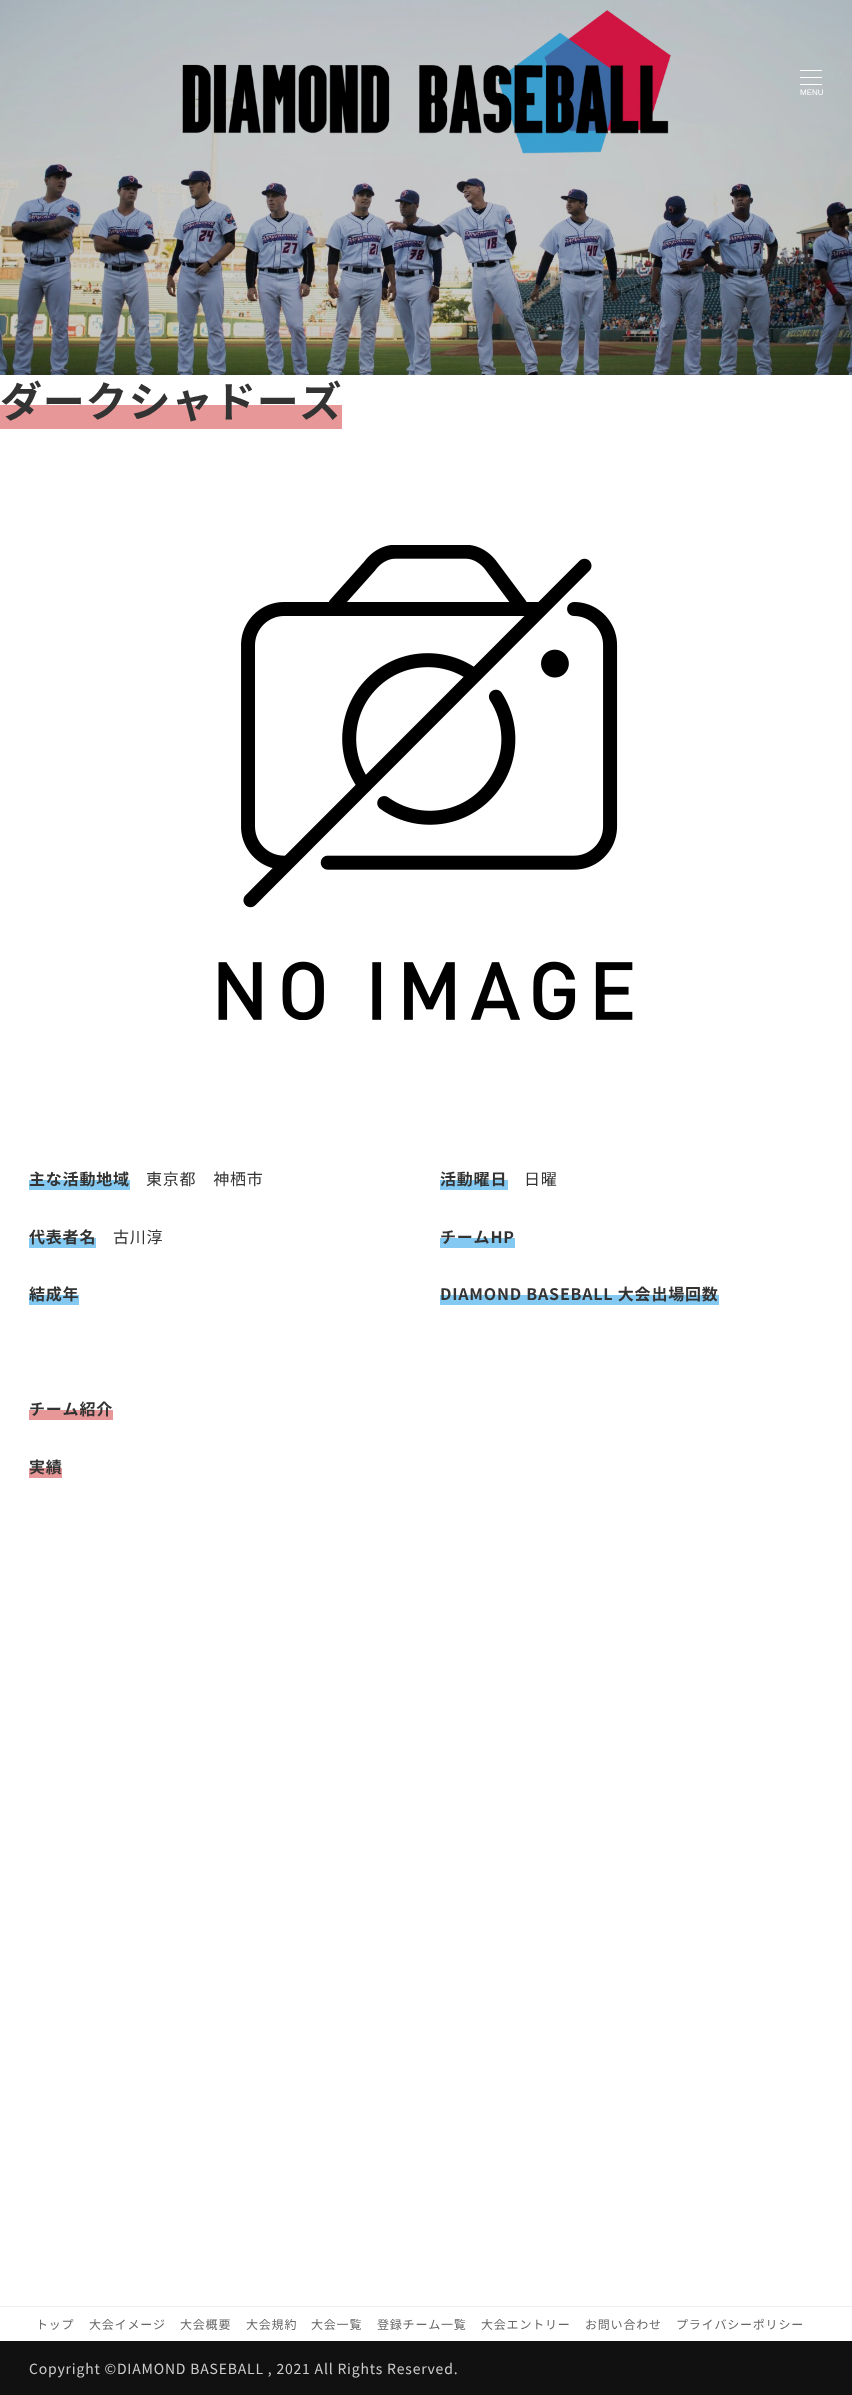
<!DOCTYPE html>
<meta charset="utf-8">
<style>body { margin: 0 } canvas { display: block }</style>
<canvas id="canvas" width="852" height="2395"></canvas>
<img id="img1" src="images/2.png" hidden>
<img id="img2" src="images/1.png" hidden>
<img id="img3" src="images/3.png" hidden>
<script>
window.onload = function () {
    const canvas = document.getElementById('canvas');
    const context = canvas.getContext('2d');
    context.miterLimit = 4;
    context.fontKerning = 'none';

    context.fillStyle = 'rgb(255, 255, 255)';
    context.fillRect(0, 0, 852, 2395);
    context.drawImage(document.getElementById('img1'), 0, 0, 852, 375);
    context.drawImage(document.getElementById('img2'), 182, 10, 489, 144);
    context.fillRect(800, 70, 22, 1);
    context.fillRect(800, 77, 22, 1);
    context.fillRect(800, 84, 22, 1);
    context.fillStyle = 'rgb(231, 151, 151)';
    context.fillRect(0, 405, 342, 24);
    context.drawImage(document.getElementById('img3'), 218, 545, 415, 475);
    context.fillStyle = 'rgb(131, 201, 241)';
    context.fillRect(29, 1180, 101, 10);
    context.fillRect(440, 1180, 68, 10);
    context.fillRect(29, 1238, 67, 10);
    context.fillRect(440, 1238, 75, 10);
    context.fillRect(29, 1295, 50, 10);
    context.fillRect(440, 1295, 279, 10);
    context.fillStyle = 'rgb(231, 151, 151)';
    context.fillRect(29, 1410, 84, 10);
    context.fillRect(29, 1468, 33, 10);
    context.fillStyle = 'rgb(238, 238, 238)';
    context.fillRect(0, 2306, 852, 1);
    context.fillStyle = 'rgb(17, 17, 17)';
    context.fillRect(0, 2341, 852, 54);
    context.font = '8px Liberation Sans';
    context.fillStyle = 'rgb(255, 255, 255)';
    context.fillText('MENU', 800, 95);
    context.letterSpacing = '0.8px';
    context.font = 'bold 42px Noto Sans JP';
    context.fillStyle = 'rgb(51, 51, 51)';
    context.fillText('ダークシャドーズ', 0, 417);
    context.font = 'bold 16px Noto Sans JP';
    context.fillText('主な活動地域', 29, 1185);
    context.font = '16px Noto Sans JP';
    context.fillText('東京都　神栖市', 146, 1185);
    context.font = 'bold 16px Noto Sans JP';
    context.fillText('活動曜日', 440, 1185);
    context.font = '16px Noto Sans JP';
    context.fillText('日曜', 524, 1185);
    context.font = 'bold 16px Noto Sans JP';
    context.fillText('代表者名', 29, 1243);
    context.font = '16px Noto Sans JP';
    context.fillText('古川淳', 113, 1243);
    context.font = 'bold 16px Noto Sans JP';
    context.fillText('チームHP', 440, 1243);
    context.fillText('結成年', 29, 1300);
    context.fillText('DIAMOND BASEBALL 大会出場回数', 440, 1300);
    context.fillText('チーム紹介', 29, 1415);
    context.fillText('実績', 29, 1473);
    context.font = '12px Noto Sans JP';
    context.fillStyle = 'rgb(102, 102, 102)';
    context.fillText('トップ', 36, 2329);
    context.fillText('大会イメージ', 89, 2329);
    context.fillText('大会概要', 180, 2329);
    context.fillText('大会規約', 246, 2329);
    context.fillText('大会一覧', 311, 2329);
    context.fillText('登録チーム一覧', 377, 2329);
    context.fillText('大会エントリー', 481, 2329);
    context.fillText('お問い合わせ', 585, 2329);
    context.fillText('プライバシーポリシー', 676, 2329);
    context.font = '14px Noto Sans JP';
    context.fillStyle = 'rgb(204, 204, 204)';
    context.fillText('Copyright ©DIAMOND BASEBALL , 2021 All Rights Reserved.', 29, 2374);
};
</script>
